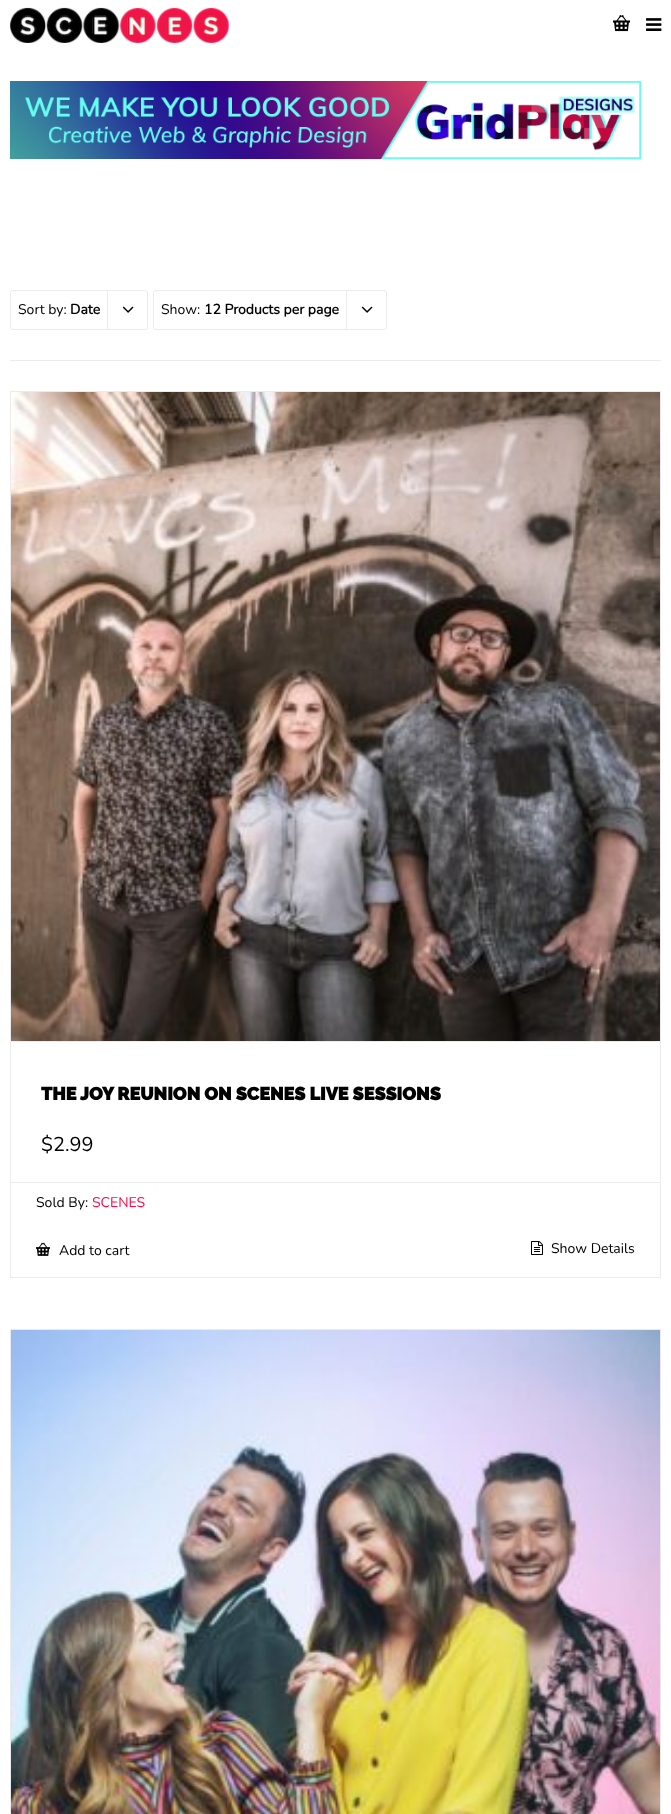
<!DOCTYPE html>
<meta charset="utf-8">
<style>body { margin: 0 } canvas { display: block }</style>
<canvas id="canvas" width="671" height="1814"></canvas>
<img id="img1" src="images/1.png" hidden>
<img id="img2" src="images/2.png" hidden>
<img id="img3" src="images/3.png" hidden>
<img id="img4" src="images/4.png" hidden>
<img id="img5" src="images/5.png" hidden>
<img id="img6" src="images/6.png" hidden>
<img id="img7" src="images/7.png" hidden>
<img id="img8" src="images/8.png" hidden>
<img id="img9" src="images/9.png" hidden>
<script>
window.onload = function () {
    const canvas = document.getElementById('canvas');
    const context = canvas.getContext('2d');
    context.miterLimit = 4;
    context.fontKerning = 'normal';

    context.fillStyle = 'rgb(255, 255, 255)';
    context.fillRect(0, 0, 671, 1814);
    context.drawImage(document.getElementById('img1'), 10, 7, 219, 36);
    context.drawImage(document.getElementById('img2'), 646, 18, 16, 13);
    context.drawImage(document.getElementById('img3'), 613, 15, 17, 17);
    context.drawImage(document.getElementById('img4'), 10, 81, 631, 78);
    context.fillStyle = 'rgb(235, 235, 235)';
    context.fillRect(10, 360, 651, 1);
    context.beginPath();
    context.roundRect(10.5, 290.5, 137, 39, 2.5);
    context.strokeStyle = 'rgb(235, 235, 235)';
    context.stroke();
    context.fillRect(107, 290, 1, 39);
    context.drawImage(document.getElementById('img5'), 122, 306, 12, 7);
    context.beginPath();
    context.roundRect(153.5, 290.5, 233, 39, 2.5);
    context.stroke();
    context.fillRect(346, 290, 1, 39);
    context.drawImage(document.getElementById('img5'), 361, 306, 12, 7);
    context.strokeRect(10.5, 391.5, 650, 886);
    context.drawImage(document.getElementById('img6'), 11, 392, 649, 649);
    context.fillRect(11, 1041, 649, 1);
    context.fillRect(11, 1182, 649, 1);
    context.drawImage(document.getElementById('img7'), 36, 1242, 14, 14);
    context.drawImage(document.getElementById('img8'), 531, 1241, 12, 14);
    context.strokeRect(10.5, 1329.5, 650, 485);
    context.drawImage(document.getElementById('img9'), 11, 1330, 649, 484);
    context.font = '200 14px Nunito';
    context.fillStyle = 'rgb(0, 0, 0)';
    context.fillText('Sort by:', 18, 314);
    context.font = 'bold 14px Nunito';
    context.fillText('Date', 70, 314);
    context.font = '200 14px Nunito';
    context.fillText('Show:', 161, 314);
    context.font = 'bold 14px Nunito';
    context.fillText('12 Products per page', 204, 314);
    context.font = 'bold 18px Raleway';
    context.fillText('THE JOY REUNION ON SCENES LIVE SESSIONS', 41, 1100);
    context.font = '200 20px Nunito';
    context.fillText('$2.99', 41, 1151);
    context.font = '200 14px Nunito';
    context.fillText('Sold By:', 36, 1207);
    context.fillStyle = 'rgb(253, 6, 70)';
    context.fillText('SCENES', 92, 1207);
    context.fillStyle = 'rgb(0, 0, 0)';
    context.fillText('Add to cart', 59, 1255);
    context.fillText('Show Details', 551, 1253);
};
</script>
